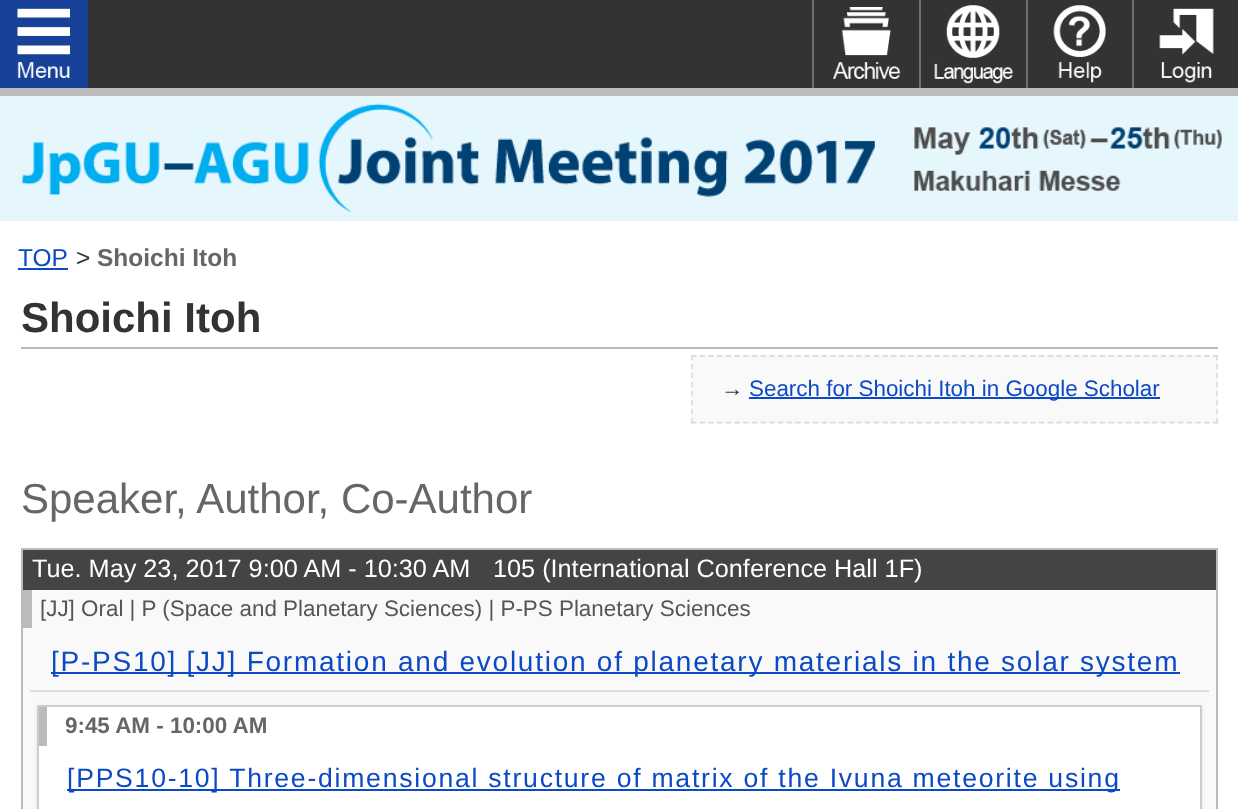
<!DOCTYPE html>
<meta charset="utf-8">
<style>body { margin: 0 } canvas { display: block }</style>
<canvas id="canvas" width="1238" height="809"></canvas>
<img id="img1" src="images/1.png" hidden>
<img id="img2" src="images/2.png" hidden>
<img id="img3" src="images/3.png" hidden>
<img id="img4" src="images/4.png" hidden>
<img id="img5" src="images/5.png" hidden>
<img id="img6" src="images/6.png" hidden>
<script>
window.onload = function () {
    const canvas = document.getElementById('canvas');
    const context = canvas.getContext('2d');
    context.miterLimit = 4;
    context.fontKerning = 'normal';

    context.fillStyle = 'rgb(238, 238, 238)';
    context.fillRect(0, 0, 1238, 809);
    context.fillStyle = 'rgb(51, 51, 51)';
    context.fillRect(88, 0, 1150, 88);
    context.fillStyle = 'rgb(187, 187, 187)';
    context.fillRect(0, 88, 1238, 8);
    context.fillStyle = 'rgb(24, 66, 153)';
    context.fillRect(0, 0, 88, 88);
    context.drawImage(document.getElementById('img1'), 17, 8, 53, 70);
    context.fillStyle = 'rgb(112, 112, 112)';
    context.fillRect(812, 0, 2, 88);
    context.drawImage(document.getElementById('img2'), 833, 7, 68, 72);
    context.fillRect(919, 0, 2, 88);
    context.drawImage(document.getElementById('img3'), 934, 5, 79, 79);
    context.fillRect(1026, 0, 2, 88);
    context.drawImage(document.getElementById('img4'), 1053, 5, 53, 78);
    context.fillRect(1132, 0, 2, 88);
    context.drawImage(document.getElementById('img5'), 1159, 8, 55, 75);
    context.drawImage(document.getElementById('img6'), 0, 96, 1238, 125);
    context.fillStyle = 'rgb(255, 255, 255)';
    context.fillRect(0, 221, 1238, 588);
    context.fillStyle = 'rgb(12, 73, 197)';
    context.fillRect(18, 268, 50, 2);
    context.fillStyle = 'rgb(187, 187, 187)';
    context.fillRect(21, 347, 1197, 2);
    context.fillStyle = 'rgb(249, 249, 249)';
    context.fillRect(691, 355, 527, 69);
    context.beginPath();
    context.moveTo(691, 356);
    context.lineTo(1218, 356);
    context.strokeStyle = 'rgb(221, 221, 221)';
    context.lineWidth = 1.8;
    context.setLineDash([5.25, 3.45]);
    context.stroke();
    context.beginPath();
    context.moveTo(1217, 355);
    context.lineTo(1217, 423.5);
    context.setLineDash([5.25, 3.75]);
    context.stroke();
    context.beginPath();
    context.moveTo(691, 422.5);
    context.lineTo(1218, 422.5);
    context.setLineDash([5.25, 3.45]);
    context.stroke();
    context.beginPath();
    context.moveTo(692, 355);
    context.lineTo(692, 423.5);
    context.setLineDash([5.25, 3.75]);
    context.stroke();
    context.fillStyle = 'rgb(12, 73, 197)';
    context.fillRect(749, 397, 411, 2);
    context.fillStyle = 'rgb(249, 249, 249)';
    context.fillRect(23, 590, 1193, 219);
    context.strokeStyle = 'rgb(187, 187, 187)';
    context.lineWidth = 2;
    context.setLineDash([]);
    context.strokeRect(22, 549, 1195, 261);
    context.fillStyle = 'rgb(68, 68, 68)';
    context.fillRect(23, 550, 1193, 40);
    context.fillStyle = 'rgb(187, 187, 187)';
    context.fillRect(23, 590, 9, 38);
    context.fillStyle = 'rgb(221, 221, 221)';
    context.fillRect(30, 690, 1179, 2);
    context.fillStyle = 'rgb(12, 73, 197)';
    context.fillRect(51, 672, 1129, 2);
    context.fillStyle = 'rgba(0, 0, 0, 0.1)';
    context.filter = 'blur(2px)';
    context.beginPath();
    context.rect(37, 707, 1165, 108);
    context.fill();
    context.filter = 'none';
    context.fillStyle = 'rgb(255, 255, 255)';
    context.beginPath();
    context.rect(38, 706, 1163, 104);
    context.fill();
    context.strokeStyle = 'rgb(204, 204, 204)';
    context.stroke();
    context.fillStyle = 'rgb(187, 187, 187)';
    context.fillRect(39, 707, 8, 39);
    context.fillStyle = 'rgb(12, 73, 197)';
    context.fillRect(67, 789, 1053, 2);
    context.font = '24.5px Liberation Sans';
    context.fillText('TOP', 18, 266);
    context.fillStyle = 'rgb(51, 51, 51)';
    context.fillText('>', 76, 266);
    context.font = 'bold 24.5px Liberation Sans';
    context.fillStyle = 'rgb(102, 102, 102)';
    context.fillText('Shoichi Itoh', 97, 266);
    context.font = 'bold 42px Liberation Sans';
    context.fillStyle = 'rgb(51, 51, 51)';
    context.fillText('Shoichi Itoh', 21, 332);
    context.font = '22.4px Liberation Sans';
    context.fillText('→', 721, 396);
    context.fillStyle = 'rgb(12, 73, 197)';
    context.fillText('Search for Shoichi Itoh in Google Scholar', 749, 396);
    context.font = '42px Liberation Sans';
    context.fillStyle = 'rgb(102, 102, 102)';
    context.fillText('Speaker, Author, Co-Author', 21, 513);
    context.font = '25.25px Liberation Sans';
    context.fillStyle = 'rgb(255, 255, 255)';
    context.fillText('Tue. May 23, 2017 9:00 AM - 10:30 AM', 32, 577);
    context.fillText('105 (International Conference Hall 1F)', 493, 577);
    context.font = '22.4px Liberation Sans';
    context.fillStyle = 'rgb(85, 85, 85)';
    context.fillText('[JJ] Oral | P (Space and Planetary Sciences) | P-PS Planetary Sciences', 40, 616);
    context.letterSpacing = '1.75px';
    context.font = '28px Liberation Sans';
    context.fillStyle = 'rgb(12, 73, 197)';
    context.fillText('[P-PS10] [JJ] Formation and evolution of planetary materials in the solar system', 51, 671);
    context.letterSpacing = '0px';
    context.font = 'bold 22.4px Liberation Sans';
    context.fillStyle = 'rgb(102, 102, 102)';
    context.fillText('9:45 AM - 10:00 AM', 65, 733);
    context.letterSpacing = '1.75px';
    context.font = '26.6px Liberation Sans';
    context.fillStyle = 'rgb(12, 73, 197)';
    context.fillText('[PPS10-10] Three-dimensional structure of matrix of the Ivuna meteorite using', 67, 787);
};
</script>
